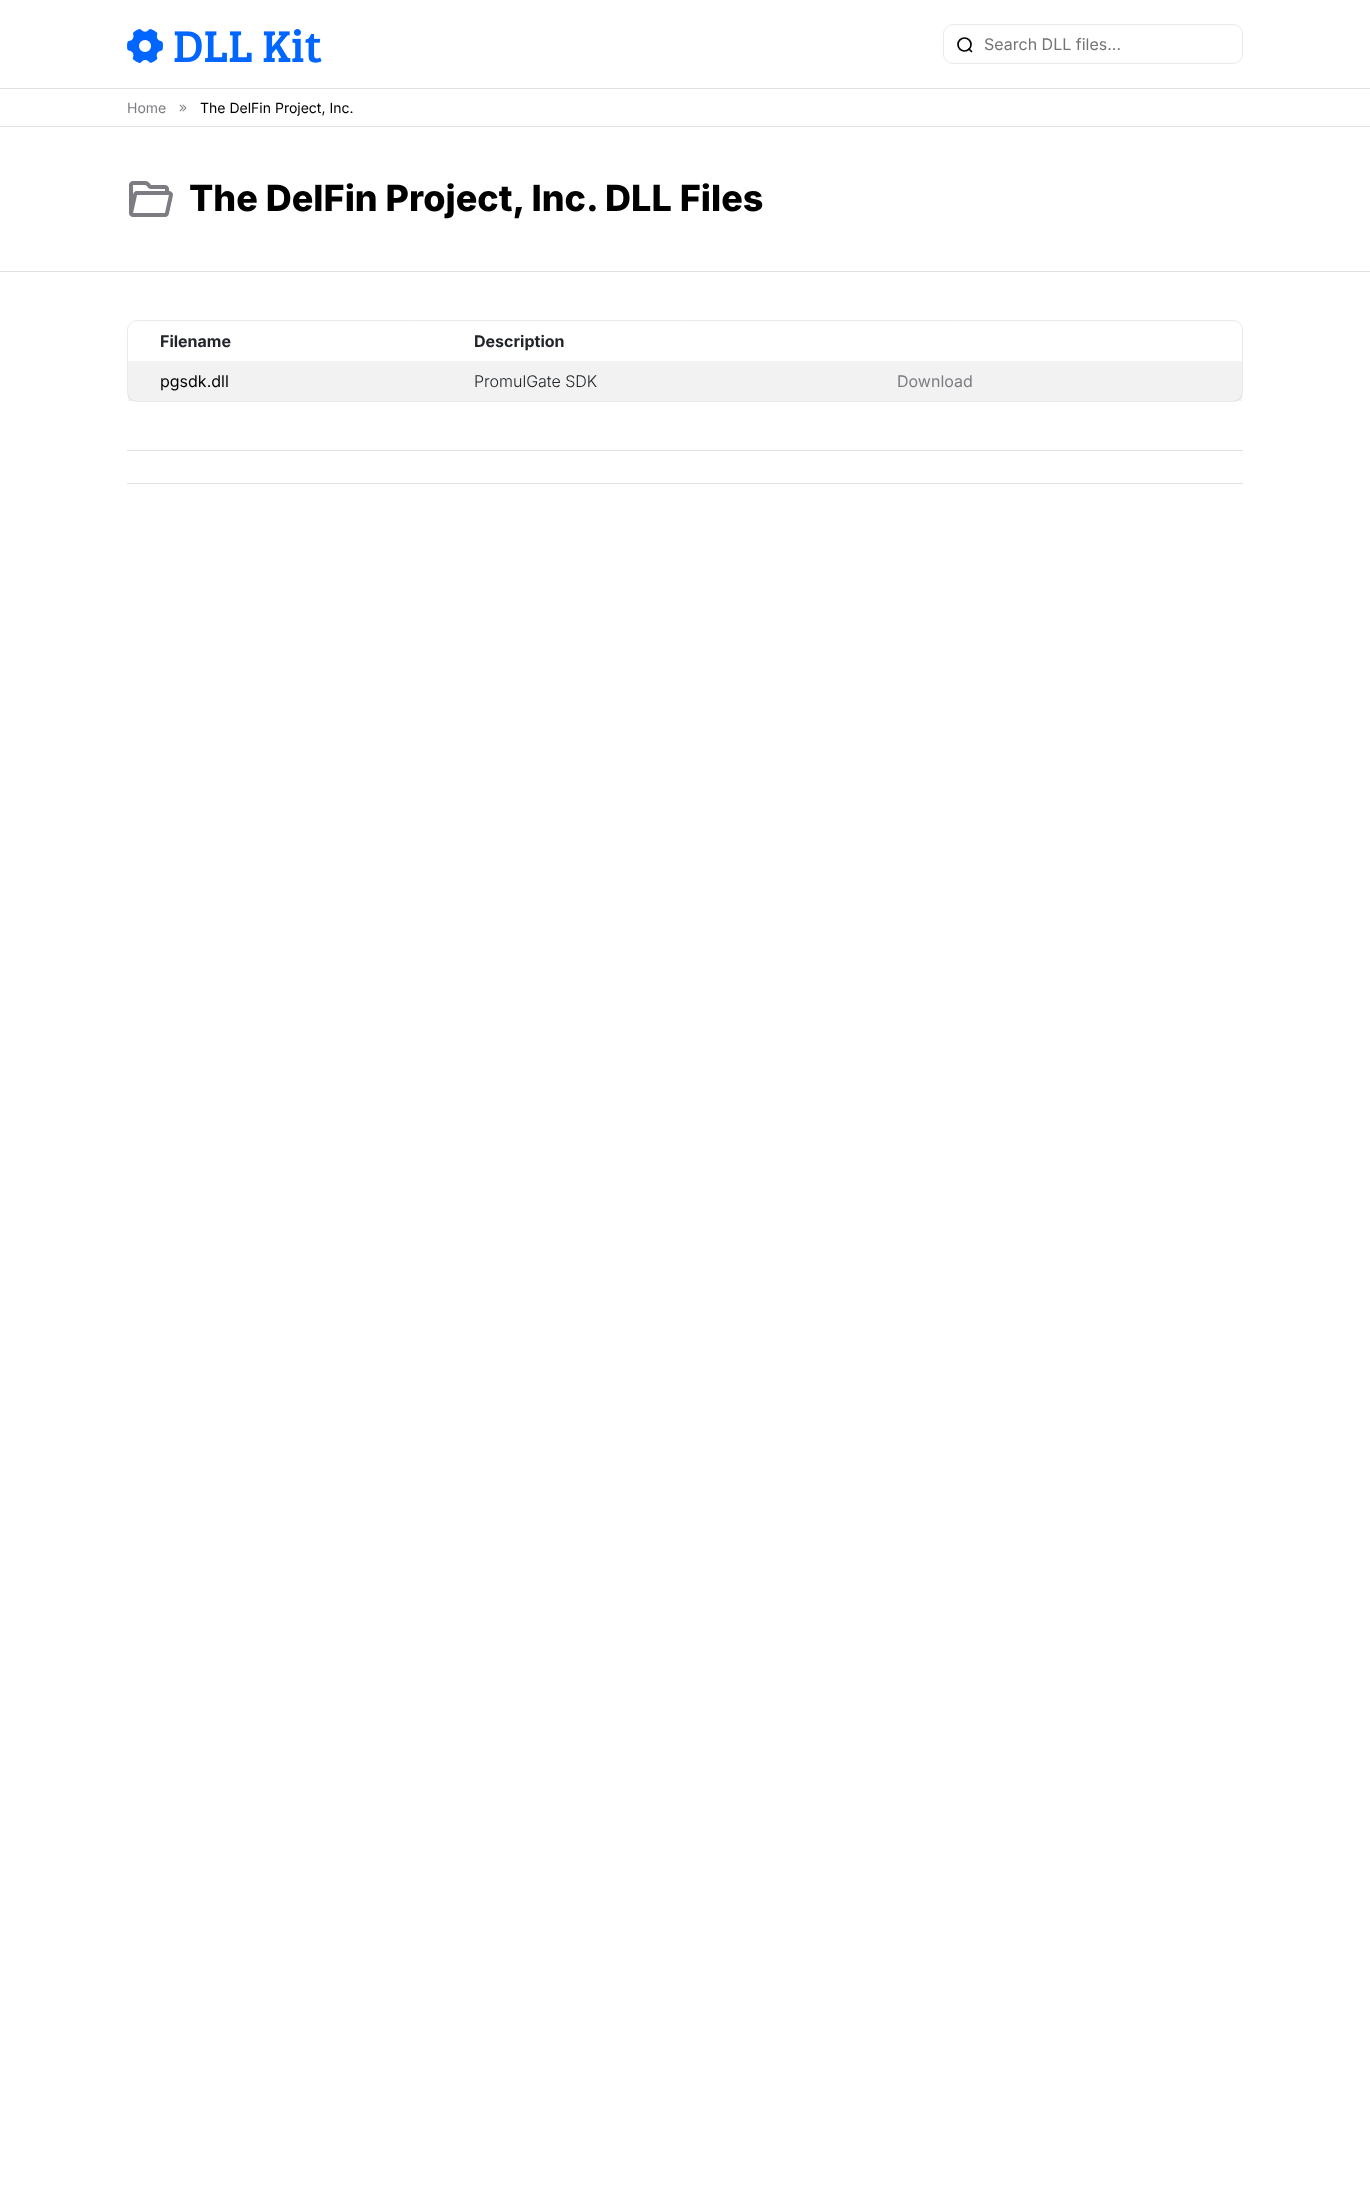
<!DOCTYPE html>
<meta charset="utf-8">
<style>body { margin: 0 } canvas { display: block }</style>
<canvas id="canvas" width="1370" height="2190"></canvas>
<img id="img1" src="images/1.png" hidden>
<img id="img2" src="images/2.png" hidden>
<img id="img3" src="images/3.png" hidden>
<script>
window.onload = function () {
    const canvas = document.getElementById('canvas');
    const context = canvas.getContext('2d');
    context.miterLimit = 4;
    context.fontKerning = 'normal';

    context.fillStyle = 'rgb(255, 255, 255)';
    context.fillRect(0, 0, 1370, 2190);
    context.fillStyle = 'rgb(222, 226, 230)';
    context.fillRect(0, 88, 1370, 1);
    context.drawImage(document.getElementById('img1'), 127, 29, 195, 34);
    context.beginPath();
    context.arc(964.5, 44.5, 6.5, 0, 2 * Math.PI);
    context.strokeStyle = 'rgb(0, 0, 0)';
    context.lineWidth = 1.7;
    context.stroke();
    context.beginPath();
    context.moveTo(969, 49);
    context.lineTo(971.5, 51.5);
    context.lineCap = 'round';
    context.lineJoin = 'round';
    context.stroke();
    context.beginPath();
    context.roundRect(943.5, 24.5, 299, 39, 9.5);
    context.strokeStyle = 'rgb(234, 234, 234)';
    context.lineWidth = 1;
    context.lineJoin = 'miter';
    context.stroke();
    context.fillRect(0, 126, 1370, 1);
    context.drawImage(document.getElementById('img2'), 179, 104, 8, 8);
    context.fillRect(0, 271, 1370, 1);
    context.drawImage(document.getElementById('img3'), 129, 181, 44, 36);
    context.beginPath();
    context.roundRect(127.5, 320.5, 1115, 81, 9.5);
    context.stroke();
    context.fillStyle = 'rgba(0, 0, 0, 0.05)';
    context.fillRect(128, 361, 338, 40);
    context.fillStyle = 'rgb(242, 242, 242)';
    context.fillRect(466, 361, 423, 40);
    context.fillStyle = 'rgba(0, 0, 0, 0.05)';
    context.fillRect(889, 361, 353, 40);
    context.fillStyle = 'rgb(222, 226, 230)';
    context.fillRect(127, 450, 1116, 1);
    context.fillRect(127, 483, 1116, 1);
    context.font = '16px Inter';
    context.fillStyle = 'rgb(117, 117, 117)';
    context.fillText('Search DLL files...', 984, 50);
    context.font = '14px Inter';
    context.fillStyle = 'rgb(125, 124, 131)';
    context.fillText('Home', 127, 113);
    context.fillStyle = 'rgb(0, 0, 0)';
    context.fillText('The DelFin Project, Inc.', 200, 113);
    context.font = '800 36px Inter';
    context.fillText('The DelFin Project, Inc. DLL Files', 189, 211);
    context.font = 'bold 16px Inter';
    context.fillStyle = 'rgb(33, 37, 41)';
    context.fillText('Filename', 160, 347);
    context.fillText('Description', 474, 347);
    context.font = '16px Inter';
    context.fillStyle = 'rgb(0, 0, 0)';
    context.fillText('pgsdk.dll', 160, 387);
    context.font = '300 16px Inter';
    context.fillStyle = 'rgb(33, 37, 41)';
    context.fillText('PromulGate SDK', 474, 387);
    context.font = '16px Inter';
    context.fillStyle = 'rgb(125, 124, 131)';
    context.fillText('Download', 897, 387);
};
</script>
